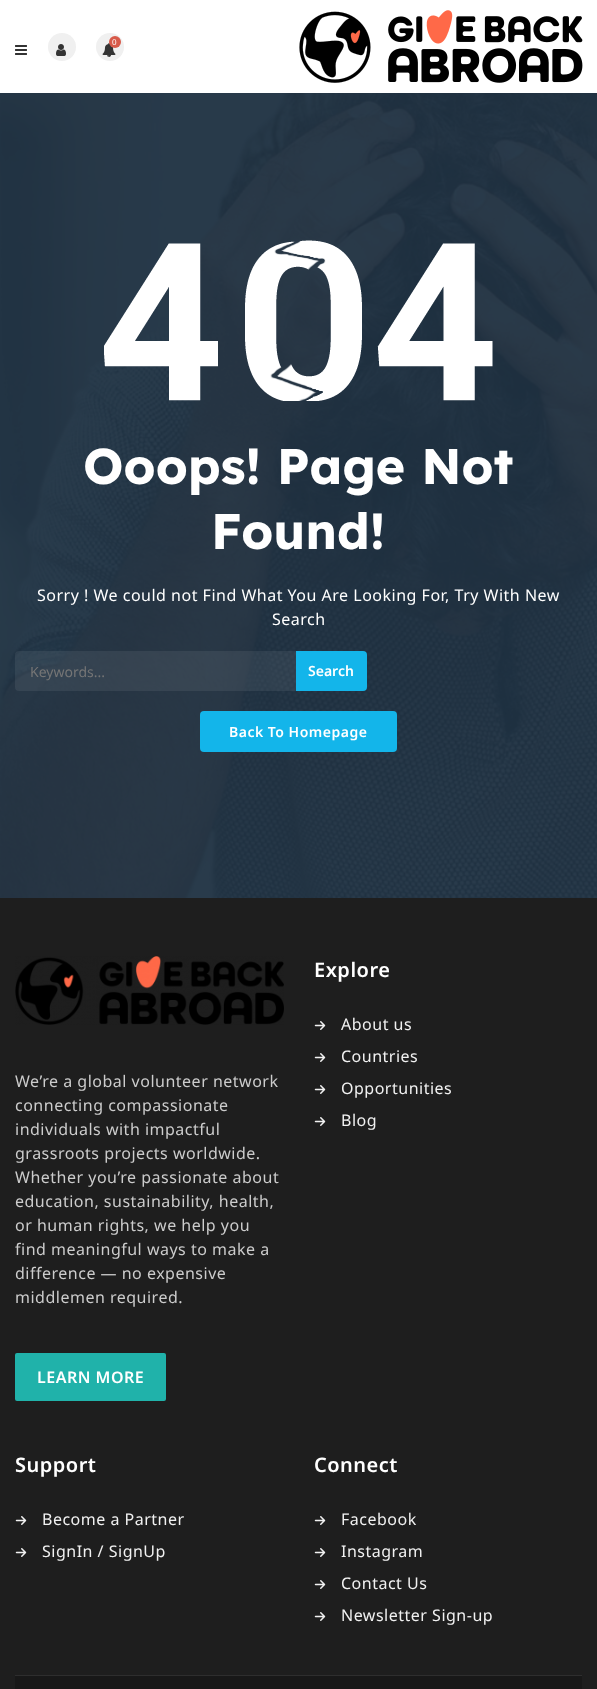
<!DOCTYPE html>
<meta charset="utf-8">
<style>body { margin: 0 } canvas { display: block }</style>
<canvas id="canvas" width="597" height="1689"></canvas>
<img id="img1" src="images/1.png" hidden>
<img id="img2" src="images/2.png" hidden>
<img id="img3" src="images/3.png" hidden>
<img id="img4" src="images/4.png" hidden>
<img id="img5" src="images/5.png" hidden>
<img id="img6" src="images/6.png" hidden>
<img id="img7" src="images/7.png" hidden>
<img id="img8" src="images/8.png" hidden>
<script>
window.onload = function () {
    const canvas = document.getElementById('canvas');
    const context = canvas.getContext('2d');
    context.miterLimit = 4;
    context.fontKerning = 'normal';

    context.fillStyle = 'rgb(255, 255, 255)';
    context.fillRect(0, 0, 597, 1689);
    context.fillStyle = 'rgb(240, 240, 240)';
    context.beginPath();
    context.arc(62, 47, 14, 0, 2 * Math.PI);
    context.fill();
    context.drawImage(document.getElementById('img1'), 56, 44, 10, 12);
    context.beginPath();
    context.arc(110, 47, 14, 0, 2 * Math.PI);
    context.fill();
    context.drawImage(document.getElementById('img2'), 102, 43, 14, 14);
    context.fillStyle = 'rgb(215, 90, 74)';
    context.beginPath();
    context.arc(115, 42, 6, 0, 2 * Math.PI);
    context.fill();
    context.drawImage(document.getElementById('img3'), 15, 45, 12, 10);
    context.drawImage(document.getElementById('img4'), 299, 10, 284, 73);
    context.drawImage(document.getElementById('img5'), 0, 93, 597, 805);
    context.drawImage(document.getElementById('img6'), 104, 240, 389, 161);
    context.fillStyle = 'rgba(255, 255, 255, 0.07)';
    context.beginPath();
    context.roundRect(15, 651, 281, 40, [4, 0, 0, 4]);
    context.fill();
    context.fillStyle = 'rgb(19, 181, 234)';
    context.beginPath();
    context.roundRect(296, 651, 71, 40, [0, 4, 4, 0]);
    context.fill();
    context.beginPath();
    context.roundRect(200, 711, 197, 41, 4);
    context.fill();
    context.fillStyle = 'rgb(30, 30, 30)';
    context.fillRect(0, 898, 597, 791);
    context.drawImage(document.getElementById('img7'), 314, 1021, 12, 9);
    context.drawImage(document.getElementById('img7'), 314, 1053, 12, 9);
    context.drawImage(document.getElementById('img7'), 314, 1085, 12, 9);
    context.drawImage(document.getElementById('img7'), 314, 1117, 12, 9);
    context.drawImage(document.getElementById('img8'), 15, 956, 269, 69);
    context.fillStyle = 'rgb(32, 178, 170)';
    context.beginPath();
    context.roundRect(15, 1353, 151, 48, 2);
    context.fill();
    context.drawImage(document.getElementById('img7'), 15, 1516, 12, 9);
    context.drawImage(document.getElementById('img7'), 15, 1548, 12, 9);
    context.drawImage(document.getElementById('img7'), 314, 1516, 12, 9);
    context.drawImage(document.getElementById('img7'), 314, 1548, 12, 9);
    context.drawImage(document.getElementById('img7'), 314, 1580, 12, 9);
    context.drawImage(document.getElementById('img7'), 314, 1612, 12, 9);
    context.fillStyle = 'rgb(24, 24, 24)';
    context.fillRect(15, 1676, 567, 13);
    context.fillStyle = 'rgb(46, 46, 46)';
    context.fillRect(15, 1675, 567, 1);
    context.letterSpacing = '0.5px';
    context.font = '8px Noto Sans';
    context.fillStyle = 'rgb(255, 255, 255)';
    context.fillText('0', 112, 45);
    context.letterSpacing = '0px';
    context.font = 'bold 50px Lexend';
    context.fillText('Ooops! Page Not', 83, 484);
    context.fillText('Found!', 211, 549);
    context.letterSpacing = '0.5px';
    context.font = '16px Noto Sans';
    context.fillText('Sorry ! We could not Find What You Are Looking For, Try With New', 37, 601);
    context.fillText('Search', 272, 625);
    context.letterSpacing = '0px';
    context.font = '14px Noto Sans';
    context.fillStyle = 'rgb(117, 117, 117)';
    context.fillText('Keywords...', 30, 677);
    context.font = '600 14px Noto Sans';
    context.fillStyle = 'rgb(255, 255, 255)';
    context.fillText('Search', 308, 676);
    context.letterSpacing = '0.5px';
    context.fillText('Back To Homepage', 229, 737);
    context.font = '600 20px Noto Sans';
    context.fillText('Explore', 314, 977);
    context.font = '16px Noto Sans';
    context.fillStyle = 'rgb(241, 241, 241)';
    context.fillText('About us', 341, 1030);
    context.fillText('Countries', 341, 1062);
    context.fillText('Opportunities', 341, 1094);
    context.fillText('Blog', 341, 1126);
    context.fillStyle = 'rgb(204, 204, 204)';
    context.fillText('We’re a global volunteer network', 15, 1087);
    context.fillText('connecting compassionate', 15, 1111);
    context.fillText('individuals with impactful', 15, 1135);
    context.fillText('grassroots projects worldwide.', 15, 1159);
    context.fillText('Whether you’re passionate about', 15, 1183);
    context.fillText('education, sustainability, health,', 15, 1207);
    context.fillText('or human rights, we help you', 15, 1231);
    context.fillText('find meaningful ways to make a', 15, 1255);
    context.fillText('difference — no expensive', 15, 1279);
    context.fillText('middlemen required.', 15, 1303);
    context.font = '600 16px Noto Sans';
    context.fillStyle = 'rgb(255, 255, 255)';
    context.fillText('LEARN MORE', 37, 1383);
    context.font = '600 20px Noto Sans';
    context.fillText('Support', 15, 1472);
    context.font = '16px Noto Sans';
    context.fillStyle = 'rgb(241, 241, 241)';
    context.fillText('Become a Partner', 42, 1525);
    context.fillText('SignIn / SignUp', 42, 1557);
    context.font = '600 20px Noto Sans';
    context.fillStyle = 'rgb(255, 255, 255)';
    context.fillText('Connect', 314, 1472);
    context.font = '16px Noto Sans';
    context.fillStyle = 'rgb(241, 241, 241)';
    context.fillText('Facebook', 341, 1525);
    context.fillText('Instagram', 341, 1557);
    context.fillText('Contact Us', 341, 1589);
    context.fillText('Newsletter Sign-up', 341, 1621);
};
</script>
